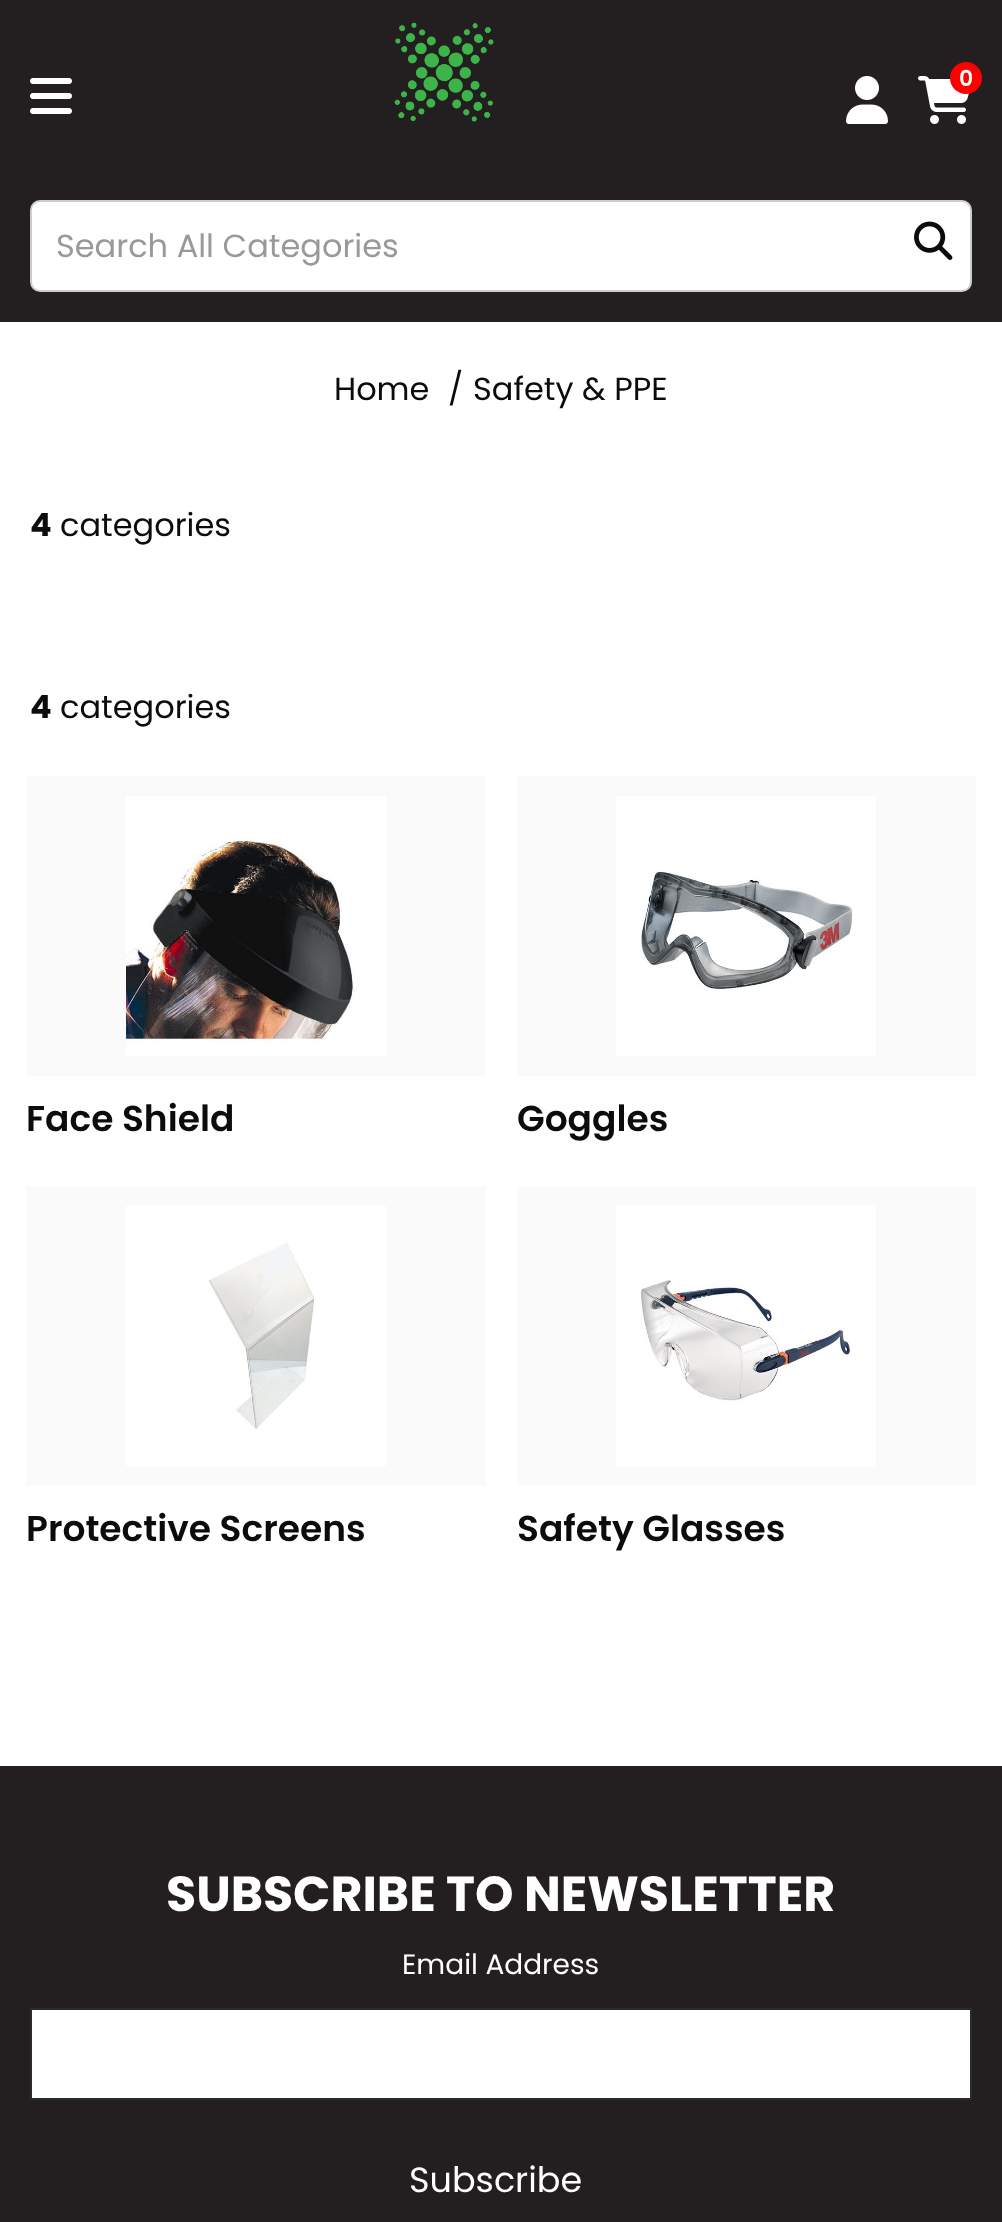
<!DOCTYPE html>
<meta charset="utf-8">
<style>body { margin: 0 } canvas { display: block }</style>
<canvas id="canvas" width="1002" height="2222"></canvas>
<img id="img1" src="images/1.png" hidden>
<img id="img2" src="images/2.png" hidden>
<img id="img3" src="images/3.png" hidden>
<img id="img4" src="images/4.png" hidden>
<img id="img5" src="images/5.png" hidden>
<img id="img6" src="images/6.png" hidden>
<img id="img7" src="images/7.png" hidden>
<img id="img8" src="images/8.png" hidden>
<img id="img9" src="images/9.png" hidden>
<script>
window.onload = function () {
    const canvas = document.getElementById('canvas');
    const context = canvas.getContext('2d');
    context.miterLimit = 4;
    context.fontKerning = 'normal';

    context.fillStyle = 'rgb(255, 255, 255)';
    context.fillRect(0, 0, 1002, 2222);
    context.fillStyle = 'rgb(35, 31, 32)';
    context.fillRect(0, 0, 1002, 322);
    context.drawImage(document.getElementById('img1'), 30, 78, 42, 36);
    context.drawImage(document.getElementById('img2'), 394, 22, 100, 100);
    context.drawImage(document.getElementById('img3'), 846, 76, 42, 48);
    context.drawImage(document.getElementById('img4'), 918, 76, 51, 48);
    context.fillStyle = 'rgb(255, 0, 0)';
    context.beginPath();
    context.arc(966, 78, 16, 0, 2 * Math.PI);
    context.fill();
    context.fillStyle = 'rgb(255, 255, 255)';
    context.beginPath();
    context.roundRect(31, 201, 940, 90, 9);
    context.fill();
    context.strokeStyle = 'rgb(204, 204, 204)';
    context.lineWidth = 2;
    context.stroke();
    context.drawImage(document.getElementById('img5'), 914, 221, 39, 39);
    context.fillStyle = 'rgb(250, 250, 250)';
    context.fillRect(26, 776, 460, 300);
    context.drawImage(document.getElementById('img6'), 126, 796, 260, 260);
    context.fillRect(518, 776, 458, 300);
    context.drawImage(document.getElementById('img7'), 616, 796, 260, 260);
    context.fillRect(26, 1186, 460, 300);
    context.drawImage(document.getElementById('img8'), 126, 1206, 260, 260);
    context.fillRect(518, 1186, 458, 300);
    context.drawImage(document.getElementById('img9'), 616, 1206, 260, 260);
    context.fillStyle = 'rgb(35, 31, 32)';
    context.fillRect(0, 1766, 1002, 456);
    context.fillStyle = 'rgb(255, 255, 255)';
    context.beginPath();
    context.rect(31, 2009, 940, 90);
    context.fill();
    context.strokeStyle = 'rgb(41, 44, 46)';
    context.stroke();
    context.font = '600 22px Poppins';
    context.fillText('0', 959, 86);
    context.font = '32px Poppins';
    context.fillStyle = 'rgb(153, 153, 153)';
    context.fillText('Search All Categories', 56, 257);
    context.fillStyle = 'rgb(12, 12, 13)';
    context.fillText('Home', 334, 400);
    context.fillText('/', 448, 400);
    context.fillText('Safety & PPE', 473, 400);
    context.font = 'bold 32px Poppins';
    context.fillText('4', 30, 536);
    context.font = '32px Poppins';
    context.fillText('categories', 60, 536);
    context.font = 'bold 32px Poppins';
    context.fillText('4', 30, 718);
    context.font = '32px Poppins';
    context.fillText('categories', 60, 718);
    context.font = '600 36px Poppins';
    context.fillText('Face Shield', 26, 1131);
    context.fillText('Goggles', 517, 1131);
    context.fillText('Protective Screens', 26, 1541);
    context.fillText('Safety Glasses', 517, 1541);
    context.font = 'bold 49px Poppins';
    context.fillStyle = 'rgb(255, 255, 255)';
    context.fillText('SUBSCRIBE TO NEWSLETTER', 166, 1911);
    context.font = '28px Poppins';
    context.fillText('Email Address', 402, 1974);
    context.font = '35px Poppins';
    context.fillText('Subscribe', 409, 2192);
};
</script>
